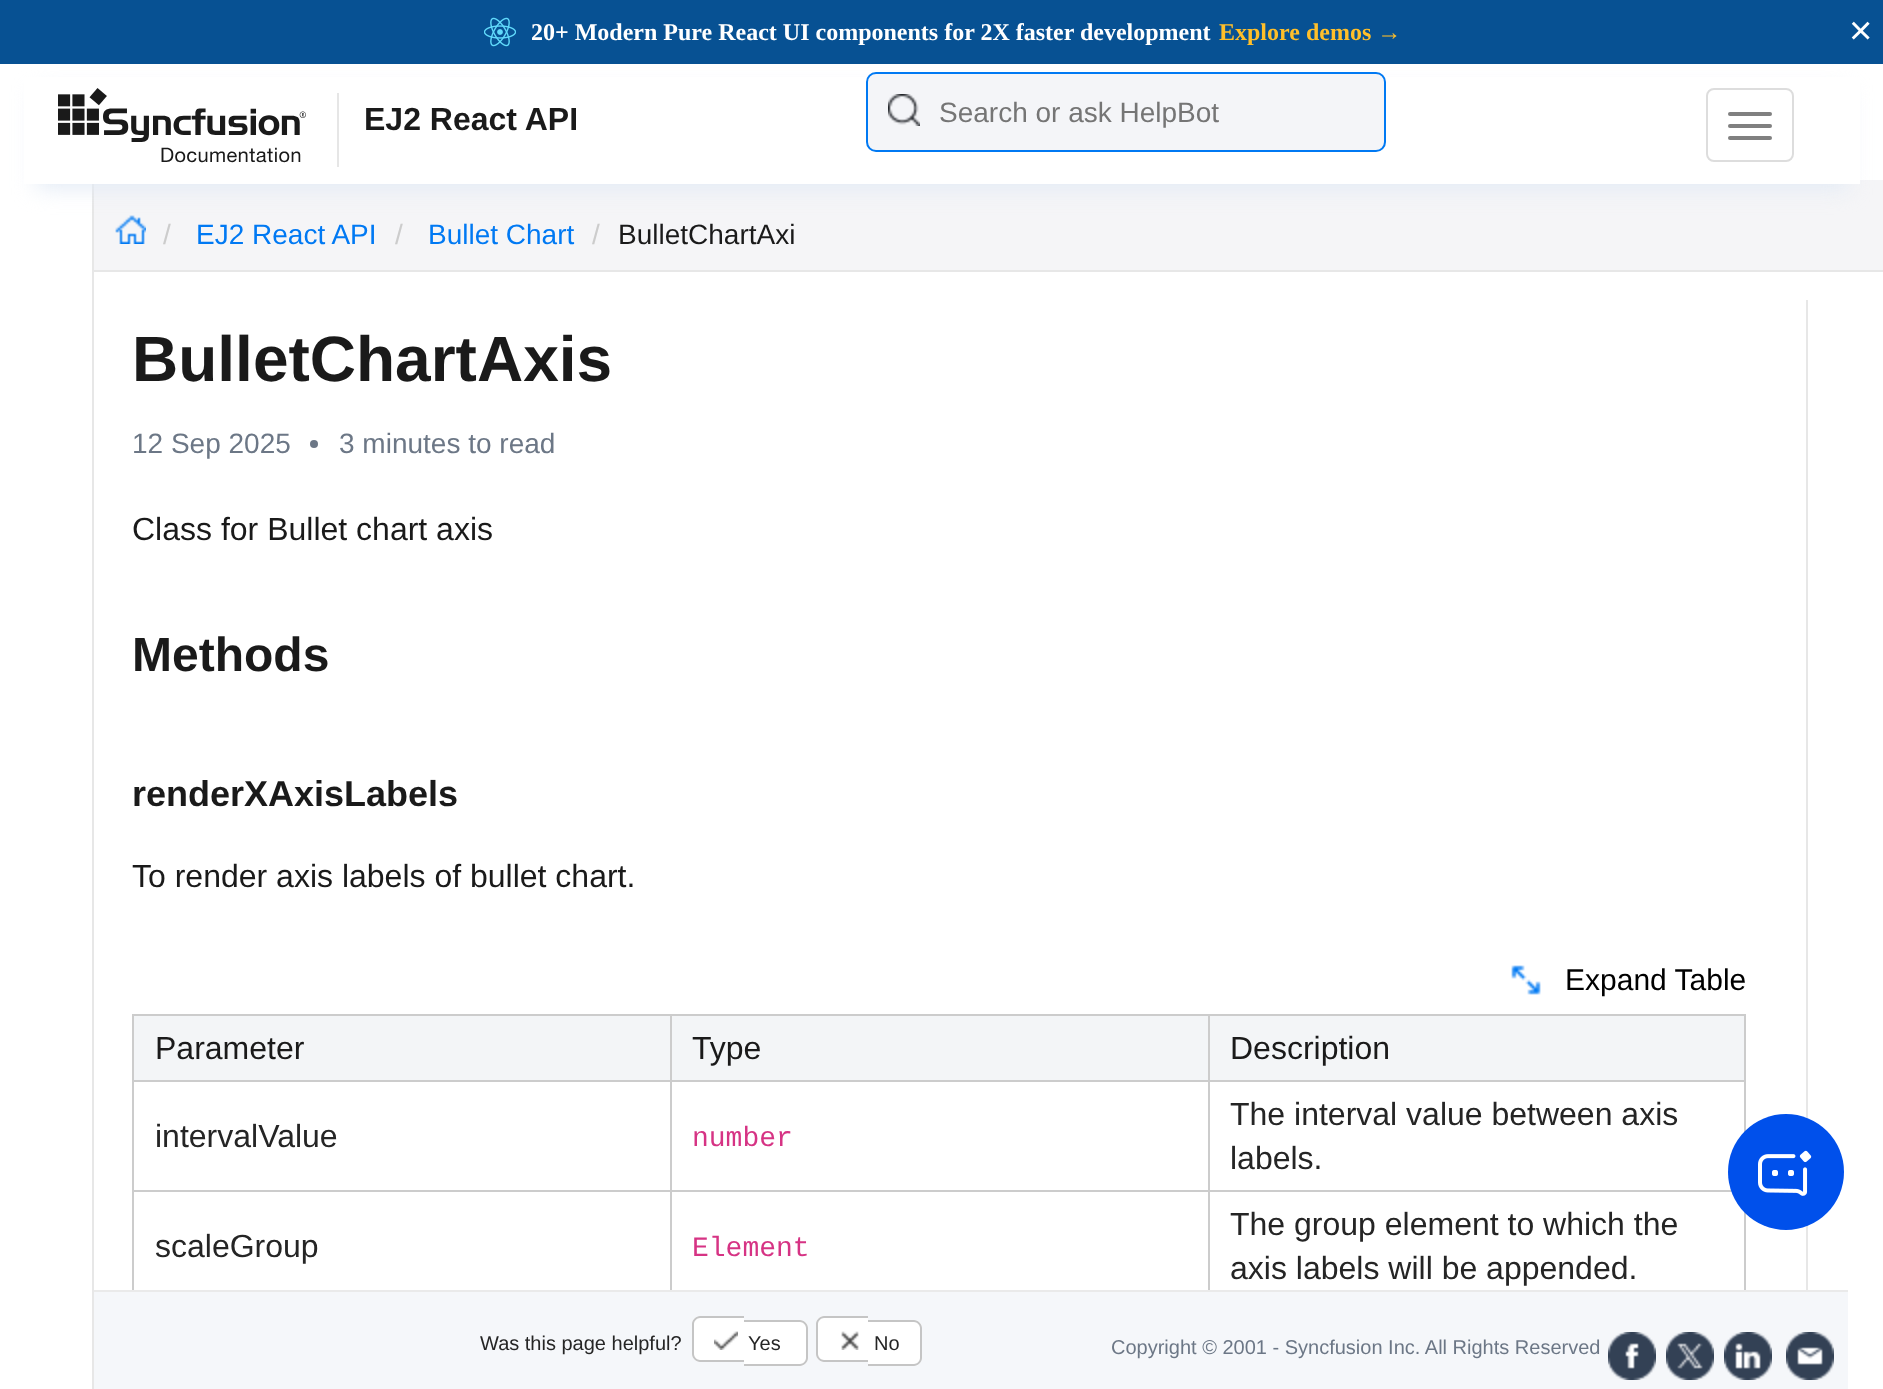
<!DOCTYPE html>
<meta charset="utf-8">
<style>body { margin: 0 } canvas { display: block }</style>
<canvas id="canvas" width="1883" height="1389"></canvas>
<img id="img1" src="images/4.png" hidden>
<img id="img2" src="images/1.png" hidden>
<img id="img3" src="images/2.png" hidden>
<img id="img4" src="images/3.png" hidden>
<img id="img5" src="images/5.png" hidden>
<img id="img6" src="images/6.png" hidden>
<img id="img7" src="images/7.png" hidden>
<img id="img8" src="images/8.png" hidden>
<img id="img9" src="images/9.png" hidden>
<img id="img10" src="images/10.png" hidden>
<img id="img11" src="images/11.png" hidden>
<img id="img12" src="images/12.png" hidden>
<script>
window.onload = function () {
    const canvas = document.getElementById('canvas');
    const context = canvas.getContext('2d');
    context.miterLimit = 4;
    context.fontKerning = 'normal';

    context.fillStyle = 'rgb(255, 255, 255)';
    context.fillRect(0, 0, 1883, 1389);
    context.fillStyle = 'rgb(245, 245, 247)';
    context.fillRect(94, 180, 1789, 90);
    context.drawImage(document.getElementById('img1'), 115, 215, 31, 29);
    context.fillStyle = 'rgb(231, 231, 231)';
    context.fillRect(92, 184, 2, 1205);
    context.fillStyle = 'rgb(226, 234, 245)';
    context.filter = 'blur(11px)';
    context.beginPath();
    context.rect(36, 92, 1812, 96);
    context.fill();
    context.filter = 'none';
    context.fillStyle = 'rgb(7, 81, 147)';
    context.fillRect(0, 0, 1883, 64);
    context.drawImage(document.getElementById('img2'), 484, 17, 32, 30);
    context.fillStyle = 'rgb(255, 255, 255)';
    context.fillRect(24, 77, 1836, 107);
    context.drawImage(document.getElementById('img3'), 58, 88, 281, 79);
    context.fillStyle = 'rgb(244, 245, 248)';
    context.beginPath();
    context.roundRect(866, 72, 520, 80, 10);
    context.fill();
    context.drawImage(document.getElementById('img4'), 888, 94, 32, 32);
    context.beginPath();
    context.roundRect(867, 73, 518, 78, 9);
    context.strokeStyle = 'rgb(0, 121, 243)';
    context.lineWidth = 2;
    context.stroke();
    context.beginPath();
    context.roundRect(1707, 89, 86, 72, 7);
    context.strokeStyle = 'rgb(221, 221, 221)';
    context.stroke();
    context.fillStyle = 'rgb(128, 128, 128)';
    context.beginPath();
    context.roundRect(1728, 112, 44, 4, 2);
    context.fill();
    context.beginPath();
    context.roundRect(1728, 124, 44, 4, 2);
    context.fill();
    context.beginPath();
    context.roundRect(1728, 136, 44, 4, 2);
    context.fill();
    context.fillStyle = 'rgb(231, 231, 231)';
    context.fillRect(94, 270, 1789, 2);
    context.fillRect(1806, 300, 2, 990);
    context.fillStyle = 'rgb(108, 119, 134)';
    context.beginPath();
    context.arc(314, 444, 4, 0, 2 * Math.PI);
    context.fill();
    context.drawImage(document.getElementById('img5'), 1511, 965, 30, 30);
    context.fillStyle = 'rgb(243, 245, 247)';
    context.fillRect(134, 1016, 536, 64);
    context.fillStyle = 'rgb(204, 204, 204)';
    context.fillRect(1208, 1014, 538, 2);
    context.fillRect(1208, 1080, 538, 2);
    context.fillRect(1208, 1190, 524, 2);
    context.fillRect(1208, 1190, 2, 100);
    context.fillRect(670, 1190, 540, 2);
    context.fillRect(1208, 1080, 2, 112);
    context.fillRect(670, 1080, 540, 2);
    context.fillRect(1208, 1014, 2, 68);
    context.fillRect(670, 1014, 540, 2);
    context.fillRect(670, 1190, 2, 100);
    context.fillRect(132, 1190, 540, 2);
    context.fillRect(670, 1080, 2, 112);
    context.fillRect(132, 1080, 540, 2);
    context.fillRect(670, 1014, 2, 68);
    context.fillRect(132, 1014, 540, 2);
    context.fillRect(132, 1190, 2, 100);
    context.fillRect(132, 1080, 2, 112);
    context.fillRect(132, 1014, 2, 68);
    context.fillStyle = 'rgb(243, 245, 247)';
    context.fillRect(672, 1016, 536, 64);
    context.fillRect(1210, 1016, 534, 64);
    context.fillStyle = 'rgb(204, 204, 204)';
    context.fillRect(1744, 1080, 2, 52);
    context.fillRect(1744, 1014, 2, 68);
    context.fillRect(1744, 1212, 2, 78);
    context.fillStyle = 'rgb(0, 80, 235)';
    context.beginPath();
    context.arc(1786, 1172, 58, 0, 2 * Math.PI);
    context.fill();
    context.drawImage(document.getElementById('img6'), 1758, 1150, 54, 46);
    context.fillStyle = 'rgb(245, 247, 250)';
    context.fillRect(94, 1292, 1754, 97);
    context.fillStyle = 'rgb(234, 234, 234)';
    context.fillRect(94, 1290, 1754, 2);
    context.fillStyle = 'rgb(255, 255, 255)';
    context.beginPath();
    context.roundRect(692, 1316, 52, 46, [8, 0, 0, 8]);
    context.fill();
    context.fillStyle = 'rgb(197, 197, 197)';
    context.beginPath();
    context.moveTo(700, 1316);
    context.lineTo(744, 1316);
    context.lineTo(744, 1362);
    context.lineTo(700, 1362);
    context.bezierCurveTo(696, 1362, 692, 1358, 692, 1354);
    context.lineTo(692, 1324);
    context.bezierCurveTo(692, 1320, 696, 1316, 700, 1316);
    context.closePath();
    context.moveTo(700, 1318);
    context.lineTo(744, 1318);
    context.lineTo(744, 1360);
    context.lineTo(700, 1360);
    context.bezierCurveTo(697, 1360, 694, 1357, 694, 1354);
    context.lineTo(694, 1324);
    context.bezierCurveTo(694, 1321, 697, 1318, 700, 1318);
    context.closePath();
    context.fill('evenodd');
    context.fillStyle = 'rgb(255, 255, 255)';
    context.beginPath();
    context.roundRect(744, 1320, 64, 46, [0, 8, 8, 0]);
    context.fill();
    context.fillStyle = 'rgb(197, 197, 197)';
    context.beginPath();
    context.moveTo(744, 1320);
    context.lineTo(800, 1320);
    context.bezierCurveTo(804, 1320, 808, 1324, 808, 1328);
    context.lineTo(808, 1358);
    context.bezierCurveTo(808, 1362, 804, 1366, 800, 1366);
    context.lineTo(744, 1366);
    context.closePath();
    context.moveTo(744, 1322);
    context.lineTo(800, 1322);
    context.bezierCurveTo(803, 1322, 806, 1325, 806, 1328);
    context.lineTo(806, 1358);
    context.bezierCurveTo(806, 1361, 803, 1364, 800, 1364);
    context.lineTo(744, 1364);
    context.closePath();
    context.fill('evenodd');
    context.drawImage(document.getElementById('img7'), 714, 1331, 24, 19);
    context.fillStyle = 'rgb(255, 255, 255)';
    context.beginPath();
    context.roundRect(816, 1316, 52, 46, [8, 0, 0, 8]);
    context.fill();
    context.fillStyle = 'rgb(197, 197, 197)';
    context.beginPath();
    context.moveTo(824, 1316);
    context.lineTo(868, 1316);
    context.lineTo(868, 1362);
    context.lineTo(824, 1362);
    context.bezierCurveTo(820, 1362, 816, 1358, 816, 1354);
    context.lineTo(816, 1324);
    context.bezierCurveTo(816, 1320, 820, 1316, 824, 1316);
    context.closePath();
    context.moveTo(824, 1318);
    context.lineTo(868, 1318);
    context.lineTo(868, 1360);
    context.lineTo(824, 1360);
    context.bezierCurveTo(821, 1360, 818, 1357, 818, 1354);
    context.lineTo(818, 1324);
    context.bezierCurveTo(818, 1321, 821, 1318, 824, 1318);
    context.closePath();
    context.fill('evenodd');
    context.fillStyle = 'rgb(255, 255, 255)';
    context.beginPath();
    context.roundRect(868, 1320, 54, 46, [0, 8, 8, 0]);
    context.fill();
    context.fillStyle = 'rgb(197, 197, 197)';
    context.beginPath();
    context.moveTo(868, 1320);
    context.lineTo(914, 1320);
    context.bezierCurveTo(918, 1320, 922, 1324, 922, 1328);
    context.lineTo(922, 1358);
    context.bezierCurveTo(922, 1362, 918, 1366, 914, 1366);
    context.lineTo(868, 1366);
    context.closePath();
    context.moveTo(868, 1322);
    context.lineTo(914, 1322);
    context.bezierCurveTo(917, 1322, 920, 1325, 920, 1328);
    context.lineTo(920, 1358);
    context.bezierCurveTo(920, 1361, 917, 1364, 914, 1364);
    context.lineTo(868, 1364);
    context.closePath();
    context.fill('evenodd');
    context.drawImage(document.getElementById('img8'), 841, 1331, 18, 19);
    context.drawImage(document.getElementById('img9'), 1608, 1332, 48, 48);
    context.drawImage(document.getElementById('img10'), 1666, 1332, 48, 48);
    context.drawImage(document.getElementById('img11'), 1724, 1332, 48, 48);
    context.drawImage(document.getElementById('img12'), 1786, 1332, 48, 48);
    context.font = 'bold 24px Liberation Serif';
    context.fillStyle = 'rgb(255, 255, 255)';
    context.fillText('20+ Modern Pure React UI components for 2X faster development', 531, 40);
    context.fillStyle = 'rgb(255, 191, 42)';
    context.fillText('Explore demos →', 1219, 40);
    context.font = '40px Liberation Sans';
    context.fillStyle = 'rgb(255, 255, 255)';
    context.fillText('×', 1849, 44);
    context.font = 'bold 32px Liberation Sans';
    context.fillStyle = 'rgb(26, 26, 26)';
    context.fillText('EJ2 React API', 364, 130);
    context.font = '28px Liberation Sans';
    context.fillStyle = 'rgb(117, 117, 117)';
    context.fillText('Search or ask HelpBot', 939, 122);
    context.fillStyle = 'rgb(204, 204, 204)';
    context.fillText('/', 163, 244);
    context.fillStyle = 'rgb(0, 121, 243)';
    context.fillText('EJ2 React API', 196, 244);
    context.fillStyle = 'rgb(204, 204, 204)';
    context.fillText('/', 395, 244);
    context.fillStyle = 'rgb(0, 121, 243)';
    context.fillText('Bullet Chart', 428, 244);
    context.fillStyle = 'rgb(204, 204, 204)';
    context.fillText('/', 592, 244);
    context.fillStyle = 'rgb(26, 26, 26)';
    context.fillText('BulletChartAxi', 618, 244);
    context.font = 'bold 64px Liberation Sans';
    context.fillText('BulletChartAxis', 132, 381);
    context.font = '28px Liberation Sans';
    context.fillStyle = 'rgb(108, 119, 134)';
    context.fillText('12 Sep 2025', 132, 453);
    context.fillText('3 minutes to read', 339, 453);
    context.font = '32px Liberation Sans';
    context.fillStyle = 'rgb(26, 26, 26)';
    context.fillText('Class for Bullet chart axis', 132, 540);
    context.font = 'bold 48px Liberation Sans';
    context.fillText('Methods', 132, 671);
    context.font = 'bold 36px Liberation Sans';
    context.fillText('renderXAxisLabels', 132, 806);
    context.font = '32px Liberation Sans';
    context.fillText('To render axis labels of bullet chart.', 132, 887);
    context.font = '30px Liberation Sans';
    context.fillStyle = 'rgb(0, 0, 0)';
    context.fillText('Expand Table', 1565, 990);
    context.font = '32px Liberation Sans';
    context.fillStyle = 'rgb(26, 26, 26)';
    context.fillText('Parameter', 155, 1059);
    context.fillText('Type', 692, 1059);
    context.fillText('Description', 1230, 1059);
    context.fillStyle = 'rgb(37, 37, 37)';
    context.fillText('intervalValue', 155, 1147);
    context.font = '28px Liberation Mono';
    context.fillStyle = 'rgb(214, 51, 132)';
    context.fillText('number', 692, 1146);
    context.font = '32px Liberation Sans';
    context.fillStyle = 'rgb(37, 37, 37)';
    context.fillText('The interval value between axis', 1230, 1125);
    context.fillText('labels.', 1230, 1169);
    context.fillText('scaleGroup', 155, 1257);
    context.font = '28px Liberation Mono';
    context.fillStyle = 'rgb(214, 51, 132)';
    context.fillText('Element', 692, 1256);
    context.font = '32px Liberation Sans';
    context.fillStyle = 'rgb(37, 37, 37)';
    context.fillText('The group element to which the', 1230, 1235);
    context.fillText('axis labels will be appended.', 1230, 1279);
    context.font = '20px Liberation Sans';
    context.fillText('Was this page helpful?', 480, 1350);
    context.fillText('Yes', 748, 1350);
    context.fillText('No', 874, 1350);
    context.fillStyle = 'rgb(108, 119, 134)';
    context.fillText('Copyright © 2001 - Syncfusion Inc. All Rights Reserved', 1111, 1354);
};
</script>
